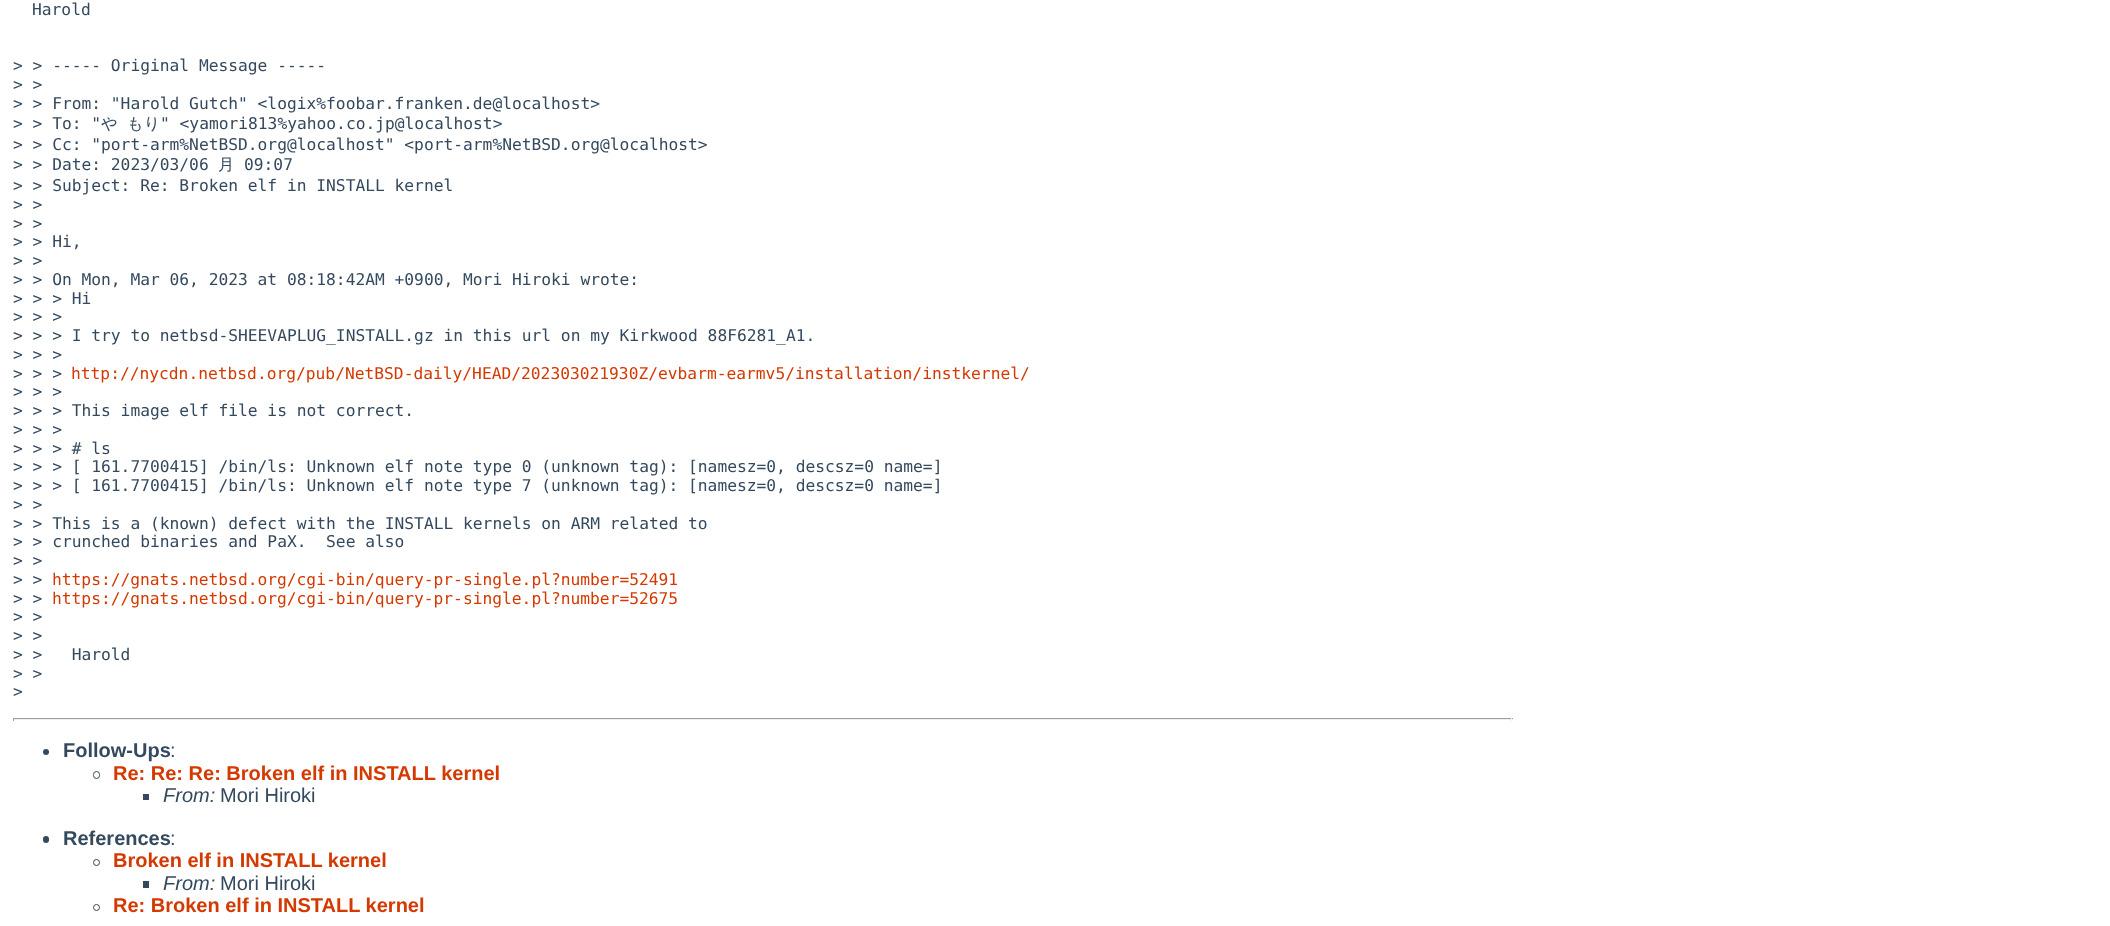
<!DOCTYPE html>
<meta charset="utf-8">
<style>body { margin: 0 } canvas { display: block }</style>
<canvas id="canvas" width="2110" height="926"></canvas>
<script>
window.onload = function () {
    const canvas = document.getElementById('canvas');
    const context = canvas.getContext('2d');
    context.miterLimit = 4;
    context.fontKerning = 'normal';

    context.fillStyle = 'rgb(255, 255, 255)';
    context.fillRect(0, 0, 2110, 926);
    context.fillStyle = 'rgb(159, 159, 159)';
    context.fillRect(13, 718, 1500, 1);
    context.fillStyle = 'rgb(238, 238, 238)';
    context.fillRect(1511, 718, 1, 3);
    context.fillRect(13, 719, 1500, 1);
    context.fillStyle = 'rgb(159, 159, 159)';
    context.fillRect(13, 718, 1, 3);
    context.fillStyle = 'rgb(52, 73, 94)';
    context.beginPath();
    context.arc(46, 752, 3, 0, 2 * Math.PI);
    context.fill();
    context.beginPath();
    context.roundRect(93.5, 771.5, 6, 7, 3);
    context.strokeStyle = 'rgb(52, 73, 94)';
    context.stroke();
    context.fillRect(143, 794, 6, 6);
    context.beginPath();
    context.roundRect(43, 836, 6, 7, 3);
    context.fill();
    context.beginPath();
    context.arc(96.5, 862.5, 3, 0, 2 * Math.PI);
    context.stroke();
    context.fillRect(143, 881, 6, 7);
    context.beginPath();
    context.arc(96.5, 907.5, 3, 0, 2 * Math.PI);
    context.stroke();
    context.font = '16.25px DejaVu Sans Mono';
    context.fillText('Harold', 32, 15);
    context.fillText('> > ----- Original Message -----', 13, 71);
    context.fillText('> >', 13, 90);
    context.fillText('> > From: "Harold Gutch" <logix%foobar.franken.de@localhost>', 13, 109);
    context.fillText('> > To: "', 13, 129);
    context.font = '500 16.25px WenQuanYi Zen Hei';
    context.fillText('や', 101, 129);
    context.fillText('もり', 127, 129);
    context.font = '16.25px DejaVu Sans Mono';
    context.fillText('" <yamori813%yahoo.co.jp@localhost>', 160, 129);
    context.fillText('> > Cc: "port-arm%NetBSD.org@localhost" <port-arm%NetBSD.org@localhost>', 13, 150);
    context.fillText('> > Date: 2023/03/06', 13, 170);
    context.font = '500 16.25px WenQuanYi Zen Hei';
    context.fillText('月', 218, 170);
    context.font = '16.25px DejaVu Sans Mono';
    context.fillText('09:07', 244, 170);
    context.fillText('> > Subject: Re: Broken elf in INSTALL kernel', 13, 191);
    context.fillText('> >', 13, 210);
    context.fillText('> >', 13, 229);
    context.fillText('> > Hi,', 13, 247);
    context.fillText('> >', 13, 266);
    context.fillText('> > On Mon, Mar 06, 2023 at 08:18:42AM +0900, Mori Hiroki wrote:', 13, 285);
    context.fillText('> > > Hi', 13, 304);
    context.fillText('> > >', 13, 322);
    context.fillText('> > > I try to netbsd-SHEEVAPLUG_INSTALL.gz in this url on my Kirkwood 88F6281_A1.', 13, 341);
    context.fillText('> > >', 13, 360);
    context.fillText('> > >', 13, 379);
    context.fillStyle = 'rgb(212, 57, 0)';
    context.fillText('http://nycdn.netbsd.org/pub/NetBSD-daily/HEAD/202303021930Z/evbarm-earmv5/installation/instkernel/', 71, 379);
    context.fillStyle = 'rgb(52, 73, 94)';
    context.fillText('> > >', 13, 397);
    context.fillText('> > > This image elf file is not correct.', 13, 416);
    context.fillText('> > >', 13, 435);
    context.fillText('> > > # ls', 13, 454);
    context.fillText('> > > [ 161.7700415] /bin/ls: Unknown elf note type 0 (unknown tag): [namesz=0, descsz=0 name=]', 13, 472);
    context.fillText('> > > [ 161.7700415] /bin/ls: Unknown elf note type 7 (unknown tag): [namesz=0, descsz=0 name=]', 13, 491);
    context.fillText('> >', 13, 510);
    context.fillText('> > This is a (known) defect with the INSTALL kernels on ARM related to', 13, 529);
    context.fillText('> > crunched binaries and PaX.  See also', 13, 547);
    context.fillText('> >', 13, 566);
    context.fillText('> >', 13, 585);
    context.fillStyle = 'rgb(212, 57, 0)';
    context.fillText('https://gnats.netbsd.org/cgi-bin/query-pr-single.pl?number=52491', 52, 585);
    context.fillStyle = 'rgb(52, 73, 94)';
    context.fillText('> >', 13, 604);
    context.fillStyle = 'rgb(212, 57, 0)';
    context.fillText('https://gnats.netbsd.org/cgi-bin/query-pr-single.pl?number=52675', 52, 604);
    context.fillStyle = 'rgb(52, 73, 94)';
    context.fillText('> >', 13, 622);
    context.fillText('> >', 13, 641);
    context.fillText('> >   Harold', 13, 660);
    context.fillText('> >', 13, 679);
    context.fillText('>', 13, 697);
    context.font = 'bold 20px Liberation Sans';
    context.fillText('Follow-Ups', 63, 757);
    context.font = '20px Liberation Sans';
    context.fillText(':', 170, 757);
    context.font = 'bold 20px Liberation Sans';
    context.fillStyle = 'rgb(212, 57, 0)';
    context.fillText('Re: Re: Re: Broken elf in INSTALL kernel', 113, 780);
    context.font = 'italic 20px Liberation Sans';
    context.fillStyle = 'rgb(52, 73, 94)';
    context.fillText('From:', 163, 802);
    context.font = '20px Liberation Sans';
    context.fillText('Mori Hiroki', 220, 802);
    context.font = 'bold 20px Liberation Sans';
    context.fillText('References', 63, 845);
    context.font = '20px Liberation Sans';
    context.fillText(':', 170, 845);
    context.font = 'bold 20px Liberation Sans';
    context.fillStyle = 'rgb(212, 57, 0)';
    context.fillText('Broken elf in INSTALL kernel', 113, 867);
    context.font = 'italic 20px Liberation Sans';
    context.fillStyle = 'rgb(52, 73, 94)';
    context.fillText('From:', 163, 890);
    context.font = '20px Liberation Sans';
    context.fillText('Mori Hiroki', 220, 890);
    context.font = 'bold 20px Liberation Sans';
    context.fillStyle = 'rgb(212, 57, 0)';
    context.fillText('Re: Broken elf in INSTALL kernel', 113, 912);
};
</script>
